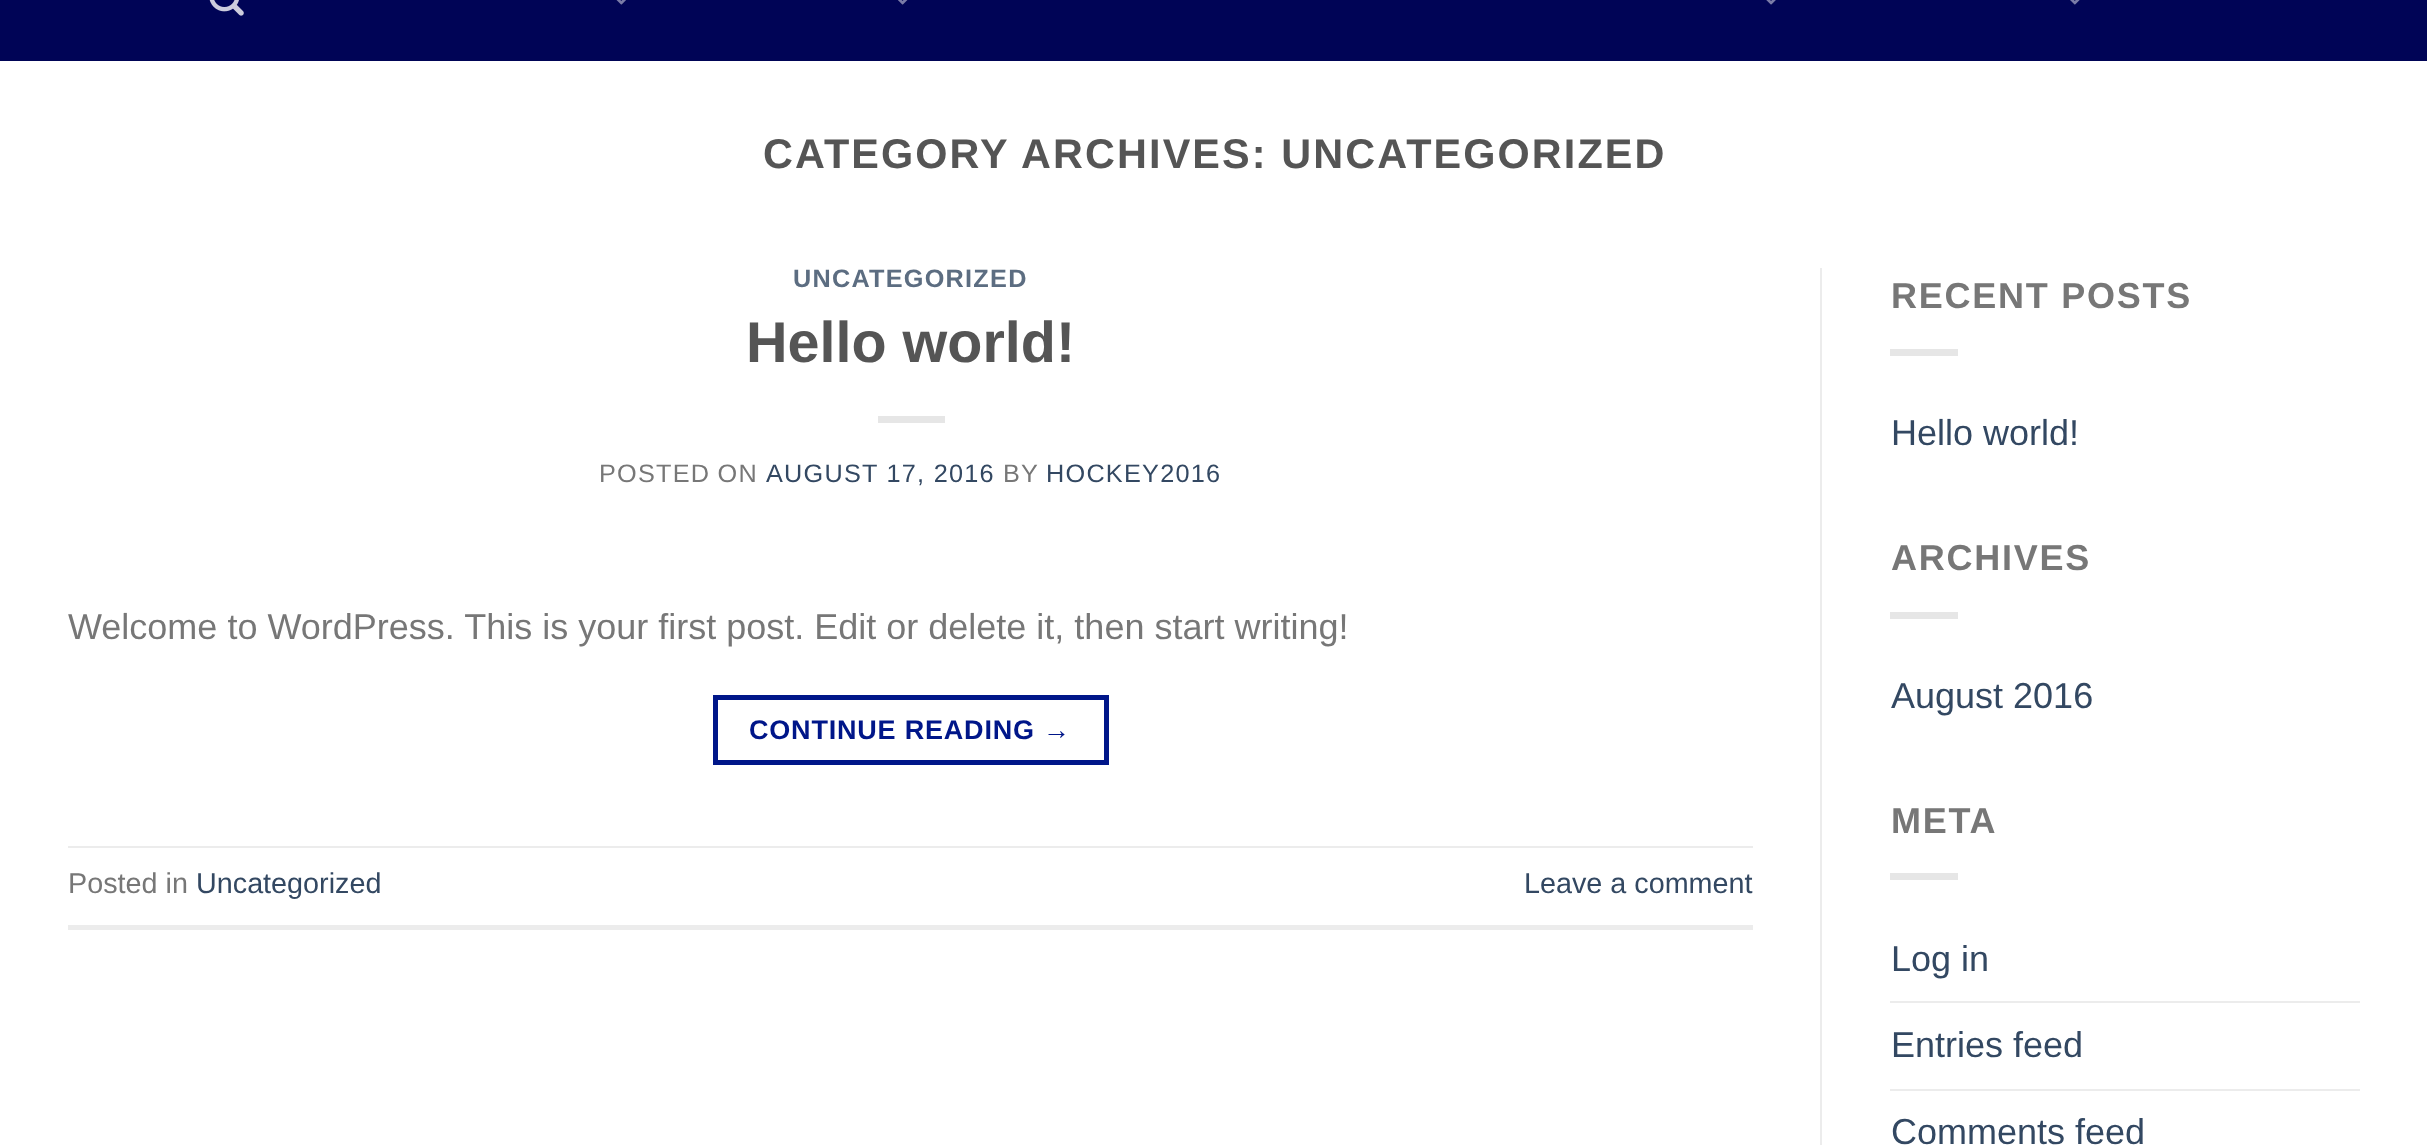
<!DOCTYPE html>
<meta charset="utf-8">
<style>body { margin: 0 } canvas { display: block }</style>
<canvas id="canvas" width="2427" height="1145"></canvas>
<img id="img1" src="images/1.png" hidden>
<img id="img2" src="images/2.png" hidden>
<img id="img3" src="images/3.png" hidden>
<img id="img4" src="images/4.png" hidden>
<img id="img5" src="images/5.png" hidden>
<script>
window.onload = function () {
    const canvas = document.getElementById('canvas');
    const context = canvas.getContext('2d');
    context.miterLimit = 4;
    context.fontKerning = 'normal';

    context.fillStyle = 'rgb(255, 255, 255)';
    context.fillRect(0, 0, 2427, 1145);
    context.fillStyle = 'rgb(0, 4, 86)';
    context.fillRect(0, 0, 2427, 61);
    context.drawImage(document.getElementById('img1'), 209, 0, 35, 16);
    context.drawImage(document.getElementById('img2'), 616, 0, 10, 5);
    context.drawImage(document.getElementById('img3'), 898, 0, 10, 5);
    context.drawImage(document.getElementById('img4'), 1766, 0, 10, 5);
    context.drawImage(document.getElementById('img5'), 2070, 0, 10, 5);
    context.fillStyle = 'rgb(230, 230, 230)';
    context.fillRect(878, 416, 67, 7);
    context.strokeStyle = 'rgb(0, 22, 137)';
    context.lineWidth = 5;
    context.strokeRect(715.5, 697.5, 391, 65);
    context.fillStyle = 'rgb(236, 236, 236)';
    context.fillRect(68, 846, 1685, 2);
    context.fillRect(68, 925, 1685, 5);
    context.fillRect(1820, 268, 2, 877);
    context.fillStyle = 'rgb(230, 230, 230)';
    context.fillRect(1890, 349, 68, 7);
    context.fillRect(1890, 612, 68, 7);
    context.fillRect(1890, 873, 68, 7);
    context.fillStyle = 'rgb(236, 236, 236)';
    context.fillRect(1890, 1001, 470, 2);
    context.fillRect(1890, 1089, 470, 2);
    context.letterSpacing = '2.1px';
    context.font = 'bold 41.4px Liberation Sans';
    context.fillStyle = 'rgb(85, 85, 85)';
    context.fillText('CATEGORY ARCHIVES: UNCATEGORIZED', 763, 168);
    context.letterSpacing = '1.25px';
    context.font = 'bold 25.25px Liberation Sans';
    context.fillStyle = 'rgb(92, 109, 129)';
    context.fillText('UNCATEGORIZED', 793, 287);
    context.letterSpacing = '0px';
    context.font = 'bold 57.5px Liberation Sans';
    context.fillStyle = 'rgb(85, 85, 85)';
    context.fillText('Hello world!', 746, 362);
    context.letterSpacing = '1.25px';
    context.wordSpacing = '-1px';
    context.font = '25.25px Liberation Sans';
    context.fillStyle = 'rgb(119, 119, 119)';
    context.fillText('POSTED ON', 599, 482);
    context.wordSpacing = '0px';
    context.fillStyle = 'rgb(51, 72, 98)';
    context.fillText('AUGUST 17, 2016', 766, 482);
    context.fillStyle = 'rgb(119, 119, 119)';
    context.fillText('BY', 1003, 482);
    context.fillStyle = 'rgb(51, 72, 98)';
    context.fillText('HOCKEY2016', 1046, 482);
    context.letterSpacing = '0px';
    context.font = '36px Liberation Sans';
    context.fillStyle = 'rgb(119, 119, 119)';
    context.fillText('Welcome to WordPress. This is your first post. Edit or delete it, then start writing!', 68, 639);
    context.letterSpacing = '0.8px';
    context.font = 'bold 27px Liberation Sans';
    context.fillStyle = 'rgb(0, 22, 137)';
    context.fillText('CONTINUE READING →', 749, 739);
    context.letterSpacing = '0px';
    context.font = '28.75px Liberation Sans';
    context.fillStyle = 'rgb(119, 119, 119)';
    context.fillText('Posted in', 68, 893);
    context.fillStyle = 'rgb(51, 72, 98)';
    context.fillText('Uncategorized', 196, 893);
    context.fillText('Leave a comment', 1524, 893);
    context.letterSpacing = '1.75px';
    context.font = 'bold 36px Liberation Sans';
    context.fillStyle = 'rgb(119, 119, 119)';
    context.fillText('RECENT POSTS', 1891, 308);
    context.letterSpacing = '0px';
    context.font = '36px Liberation Sans';
    context.fillStyle = 'rgb(51, 72, 98)';
    context.fillText('Hello world!', 1891, 445);
    context.letterSpacing = '1.75px';
    context.font = 'bold 36px Liberation Sans';
    context.fillStyle = 'rgb(119, 119, 119)';
    context.fillText('ARCHIVES', 1891, 570);
    context.letterSpacing = '0px';
    context.font = '36px Liberation Sans';
    context.fillStyle = 'rgb(51, 72, 98)';
    context.fillText('August 2016', 1891, 708);
    context.letterSpacing = '1.75px';
    context.font = 'bold 36px Liberation Sans';
    context.fillStyle = 'rgb(119, 119, 119)';
    context.fillText('META', 1891, 833);
    context.letterSpacing = '0px';
    context.font = '36px Liberation Sans';
    context.fillStyle = 'rgb(51, 72, 98)';
    context.fillText('Log in', 1891, 971);
    context.fillText('Entries feed', 1891, 1057);
    context.fillText('Comments feed', 1891, 1144);
};
</script>
